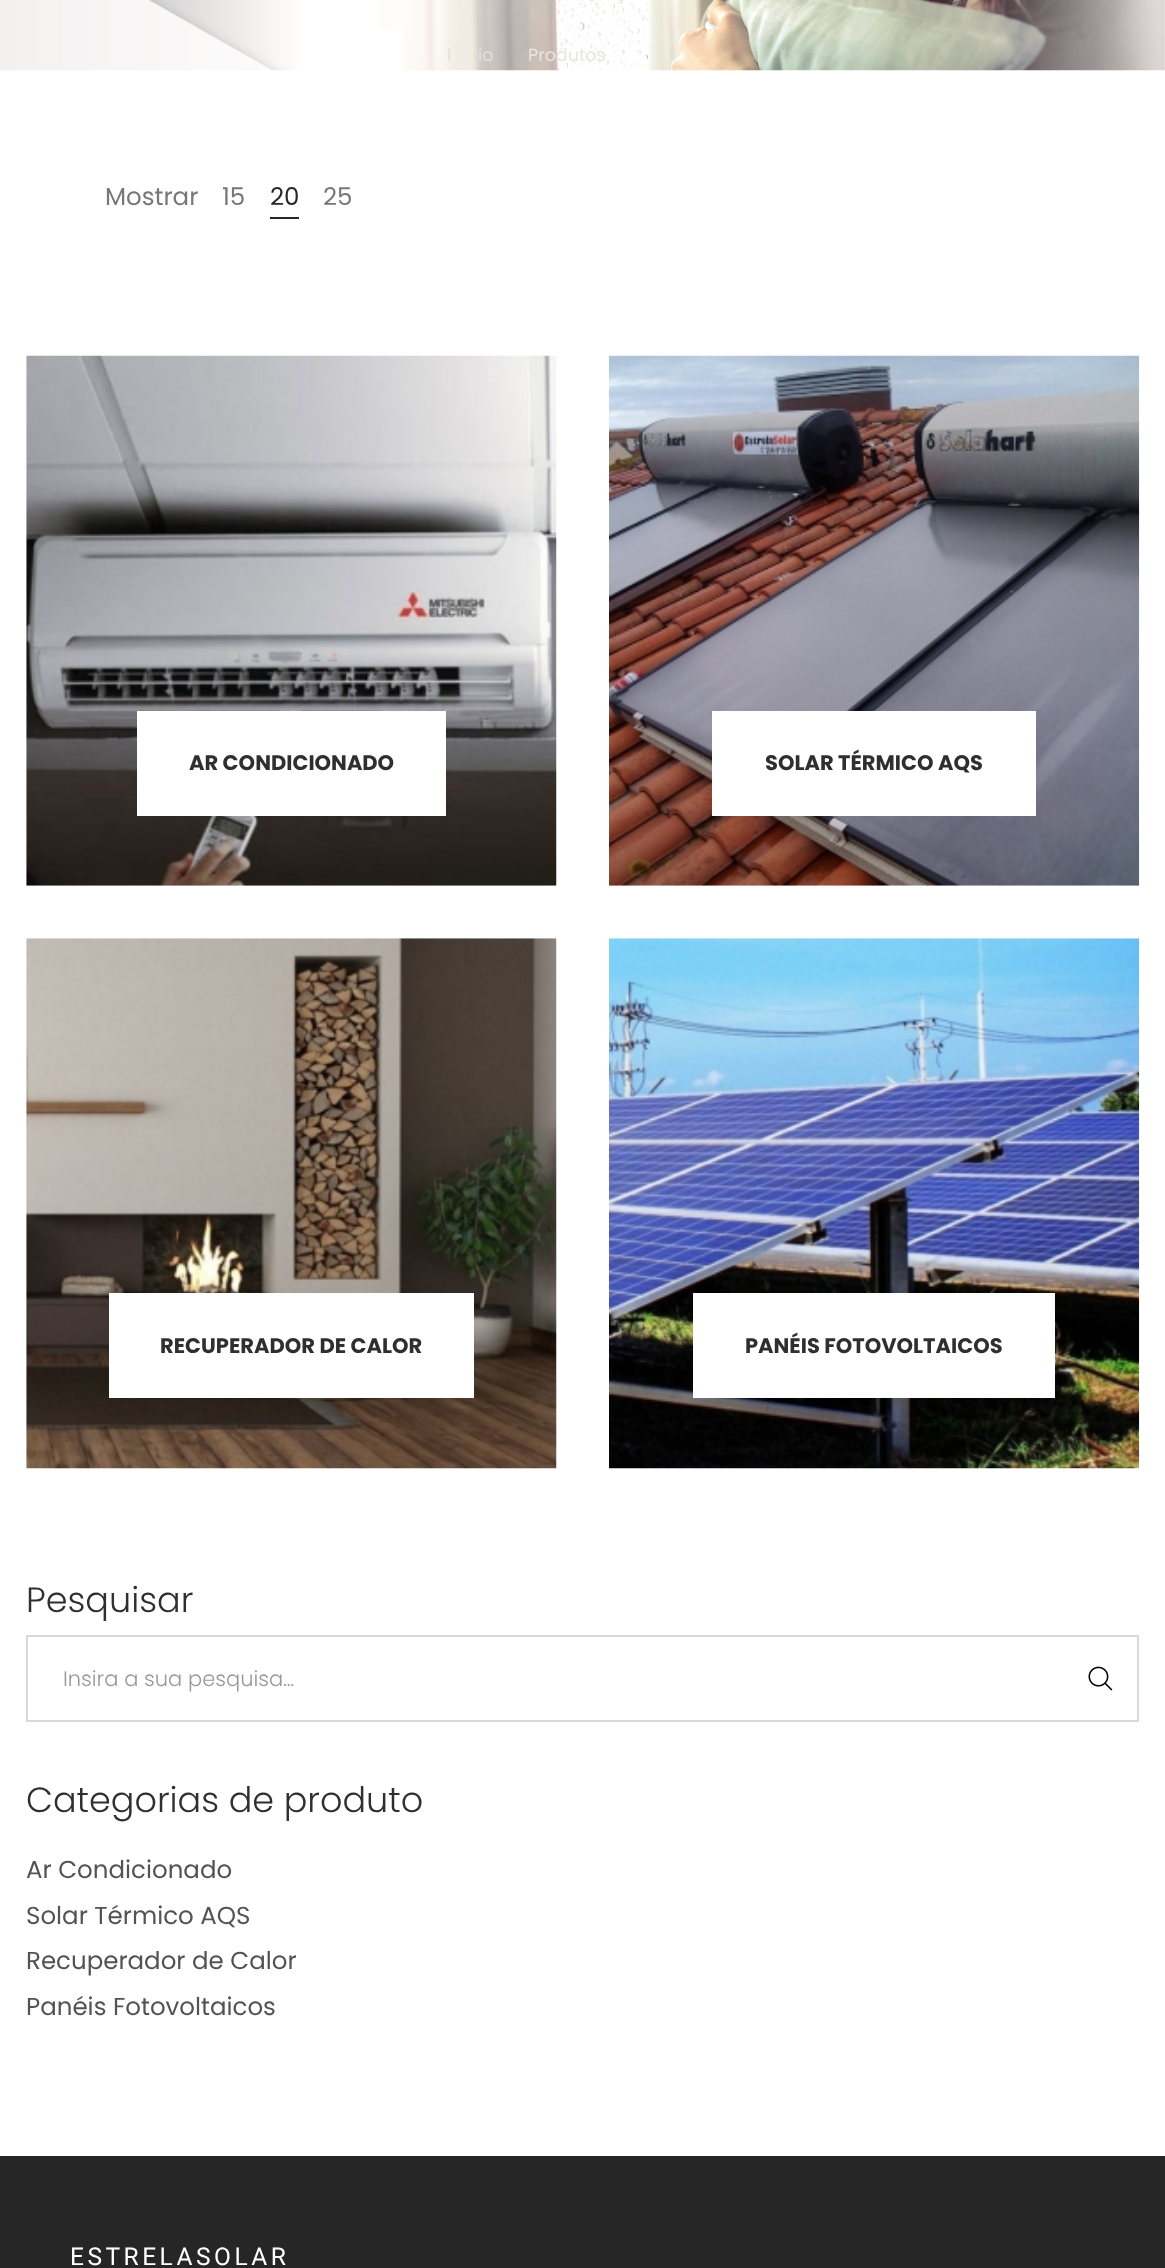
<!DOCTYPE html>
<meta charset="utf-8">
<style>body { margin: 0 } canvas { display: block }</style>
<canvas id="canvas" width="1165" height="2268"></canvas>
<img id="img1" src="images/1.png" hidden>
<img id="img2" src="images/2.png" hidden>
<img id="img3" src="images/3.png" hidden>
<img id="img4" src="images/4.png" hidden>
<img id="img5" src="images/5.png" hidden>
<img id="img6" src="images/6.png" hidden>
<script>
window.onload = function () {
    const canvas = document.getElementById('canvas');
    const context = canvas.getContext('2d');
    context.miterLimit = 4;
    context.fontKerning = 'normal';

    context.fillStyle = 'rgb(255, 255, 255)';
    context.fillRect(0, 0, 1165, 2268);
    context.drawImage(document.getElementById('img1'), 0, 0, 1165, 71);
    context.fillStyle = 'rgb(38, 38, 38)';
    context.fillRect(270, 217, 29, 2);
    context.drawImage(document.getElementById('img2'), 26, 355, 531, 531);
    context.fillStyle = 'rgb(255, 255, 255)';
    context.fillRect(137, 711, 309, 105);
    context.drawImage(document.getElementById('img3'), 609, 355, 531, 531);
    context.fillRect(712, 711, 324, 105);
    context.drawImage(document.getElementById('img4'), 26, 938, 531, 531);
    context.fillRect(109, 1293, 365, 105);
    context.drawImage(document.getElementById('img5'), 609, 938, 531, 531);
    context.fillRect(693, 1293, 362, 105);
    context.strokeStyle = 'rgb(217, 217, 217)';
    context.lineWidth = 2;
    context.strokeRect(27, 1636, 1111, 85);
    context.drawImage(document.getElementById('img6'), 1088, 1666, 25, 25);
    context.fillStyle = 'rgb(38, 38, 38)';
    context.fillRect(0, 2156, 1165, 112);
    context.font = '17.5px Poppins';
    context.fillStyle = 'rgb(229, 222, 216)';
    context.fillText('I', 447, 61);
    context.fillText('io', 478, 61);
    context.fillStyle = 'rgb(234, 229, 226)';
    context.fillText('Produtos', 528, 61);
    context.font = '24.5px Poppins';
    context.fillStyle = 'rgb(119, 119, 119)';
    context.fillText('Mostrar', 105, 205);
    context.fillText('15', 222, 205);
    context.fillStyle = 'rgb(38, 38, 38)';
    context.fillText('20', 270, 205);
    context.fillStyle = 'rgb(119, 119, 119)';
    context.fillText('25', 323, 205);
    context.font = 'bold 21px Poppins';
    context.fillStyle = 'rgb(47, 47, 47)';
    context.fillText('AR CONDICIONADO', 189, 770);
    context.fillText('SOLAR TÉRMICO AQS', 765, 770);
    context.fillText('RECUPERADOR DE CALOR', 160, 1353);
    context.fillText('PANÉIS FOTOVOLTAICOS', 745, 1353);
    context.font = '300 35px Poppins';
    context.fillText('Pesquisar', 26, 1612);
    context.font = '300 21px Poppins';
    context.fillStyle = 'rgb(152, 152, 152)';
    context.fillText('Insira a sua pesquisa…', 63, 1686);
    context.font = '300 35px Poppins';
    context.fillStyle = 'rgb(47, 47, 47)';
    context.fillText('Categorias de produto', 26, 1812);
    context.font = '24.5px Poppins';
    context.fillStyle = 'rgb(83, 83, 83)';
    context.fillText('Ar Condicionado', 26, 1878);
    context.fillText('Solar Térmico AQS', 26, 1924);
    context.fillText('Recuperador de Calor', 26, 1969);
    context.fillText('Panéis Fotovoltaicos', 26, 2015);
    context.letterSpacing = '3.5px';
    context.font = '24.5px Roboto';
    context.fillStyle = 'rgb(255, 255, 255)';
    context.fillText('ESTRELASOLAR', 70, 2265);
};
</script>
